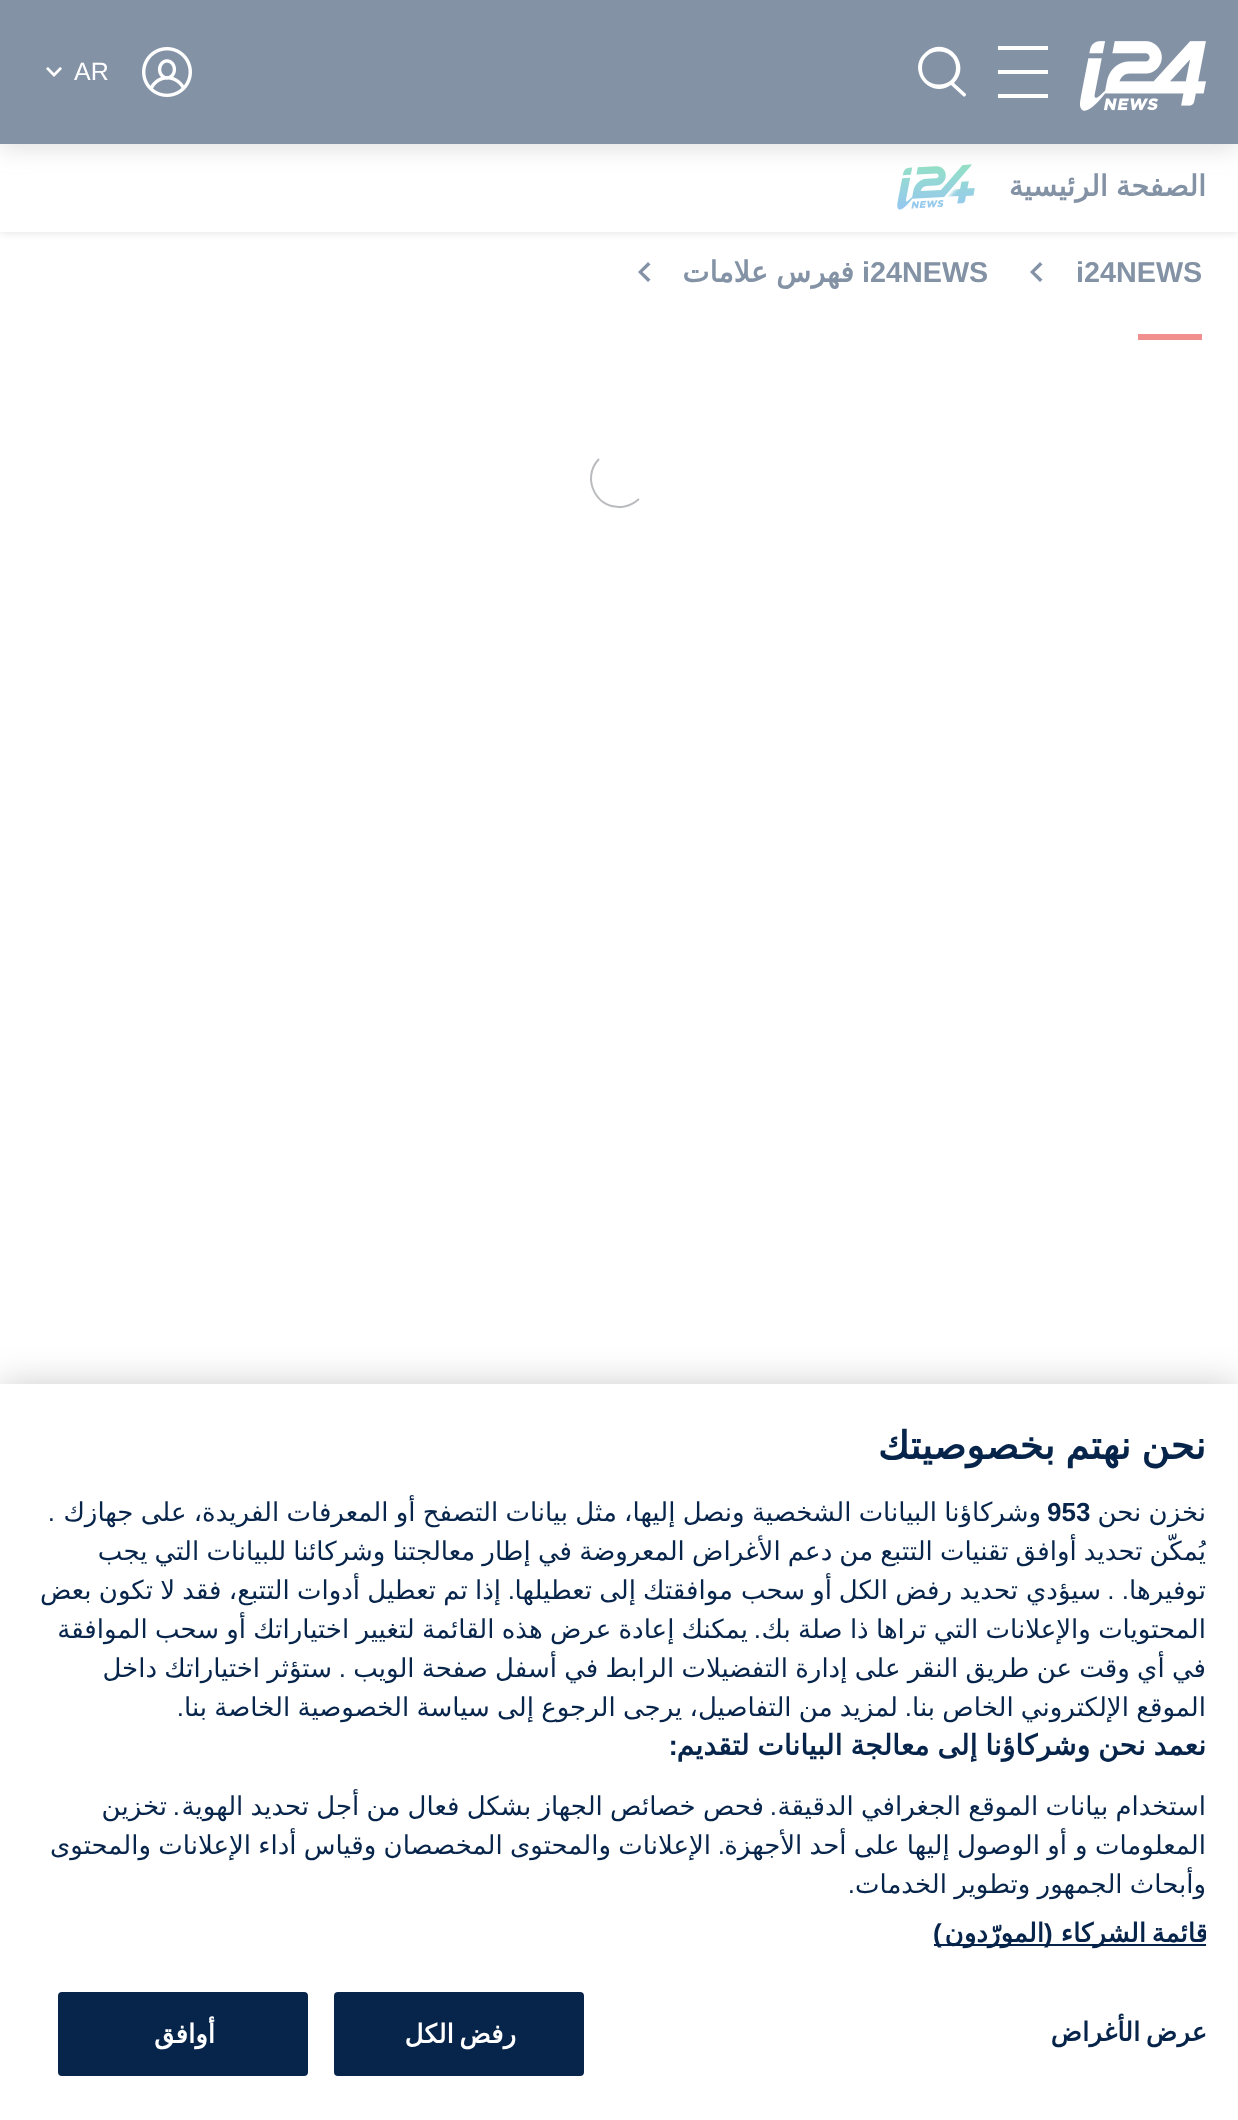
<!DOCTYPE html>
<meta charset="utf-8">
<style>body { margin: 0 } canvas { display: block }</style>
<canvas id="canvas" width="1238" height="2120"></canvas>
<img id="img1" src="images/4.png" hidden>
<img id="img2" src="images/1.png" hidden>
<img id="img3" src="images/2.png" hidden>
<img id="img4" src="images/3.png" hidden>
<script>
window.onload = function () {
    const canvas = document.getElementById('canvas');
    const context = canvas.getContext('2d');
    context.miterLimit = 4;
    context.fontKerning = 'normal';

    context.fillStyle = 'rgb(255, 255, 255)';
    context.fillRect(0, 0, 1238, 2120);
    context.save();
    context.beginPath();
    context.rect(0, 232, 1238, 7);
    context.clip();
    context.fillStyle = 'rgba(128, 128, 128, 0.25)';
    context.filter = 'blur(5px)';
    context.beginPath();
    context.rect(0, 144, 1238, 88);
    context.fill();
    context.filter = 'none';
    context.restore();
    context.drawImage(document.getElementById('img1'), 897, 164, 78, 46);
    context.fillStyle = 'rgba(128, 128, 128, 0.25)';
    context.filter = 'blur(12px)';
    context.beginPath();
    context.rect(0, 4, 1238, 144);
    context.fill();
    context.filter = 'none';
    context.fillStyle = 'rgb(131, 146, 165)';
    context.fillRect(0, 0, 1238, 144);
    context.drawImage(document.getElementById('img2'), 1080, 41, 126, 70);
    context.fillStyle = 'rgb(255, 255, 255)';
    context.fillRect(998, 46, 50, 4);
    context.fillRect(998, 70, 50, 4);
    context.fillRect(998, 94, 50, 4);
    context.beginPath();
    context.moveTo(966, 94);
    context.lineTo(954, 83);
    context.bezierCurveTo(973, 64, 946, 35, 926, 52);
    context.bezierCurveTo(905, 69, 930, 100, 951, 85);
    context.lineTo(963, 96);
    context.bezierCurveTo(964, 97, 965, 97, 965, 96);
    context.bezierCurveTo(966, 96, 966, 95, 966, 94);
    context.closePath();
    context.moveTo(922, 68);
    context.bezierCurveTo(922, 46, 956, 46, 956, 68);
    context.bezierCurveTo(956, 90, 922, 90, 922, 68);
    context.closePath();
    context.fill();
    context.drawImage(document.getElementById('img3'), 142, 47, 50, 50);
    context.drawImage(document.getElementById('img4'), 46, 67, 16, 10);
    context.fillStyle = 'rgb(131, 146, 165)';
    context.beginPath();
    context.moveTo(1042.5, 279.5);
    context.lineTo(1034.5, 272);
    context.lineTo(1042.5, 264.5);
    context.lineTo(1040, 262);
    context.lineTo(1030, 272);
    context.lineTo(1040, 282);
    context.closePath();
    context.fill();
    context.beginPath();
    context.moveTo(650.5, 279.5);
    context.lineTo(642.5, 272);
    context.lineTo(650.5, 264.5);
    context.lineTo(648, 262);
    context.lineTo(638, 272);
    context.lineTo(648, 282);
    context.closePath();
    context.fill();
    context.fillStyle = 'rgb(240, 143, 142)';
    context.fillRect(1138, 334, 64, 6);
    context.beginPath();
    context.moveTo(639, 499);
    context.bezierCurveTo(635, 502.5, 630, 505.5, 624.5, 506.5);
    context.bezierCurveTo(597.5, 512, 580, 478.5, 599, 459);
    context.strokeStyle = 'rgb(185, 187, 191)';
    context.lineWidth = 2;
    context.stroke();
    context.fillStyle = 'rgba(0, 0, 0, 0.2)';
    context.filter = 'blur(18px)';
    context.beginPath();
    context.rect(0, 1384, 1238, 736);
    context.fill();
    context.filter = 'none';
    context.fillStyle = 'rgb(255, 255, 255)';
    context.fillRect(0, 1384, 1238, 736);
    context.fillStyle = 'rgb(7, 36, 75)';
    context.fillRect(934, 1944, 272, 2);
    context.beginPath();
    context.roundRect(335, 1993, 248, 82, 3);
    context.fill();
    context.strokeStyle = 'rgb(7, 36, 75)';
    context.stroke();
    context.beginPath();
    context.roundRect(59, 1993, 248, 82, 3);
    context.fill();
    context.stroke();
    context.font = '25px Liberation Sans';
    context.fillStyle = 'rgb(255, 255, 255)';
    context.fillText('AR', 74, 80);
    context.wordSpacing = '-1px';
    context.direction = 'rtl';
    context.font = 'bold 28.75px DejaVu Sans';
    context.fillStyle = 'rgb(131, 146, 165)';
    context.fillText('الصفحة الرئيسية', 1206, 196);
    context.wordSpacing = '0px';
    context.direction = 'ltr';
    context.font = 'bold 28.75px Liberation Sans';
    context.fillText('i24NEWS', 1076, 282);
    context.fillText('i24NEWS', 862, 282);
    context.wordSpacing = '-1px';
    context.direction = 'rtl';
    context.font = 'bold 28.75px DejaVu Sans';
    context.fillText('فهرس علامات', 854, 282);
    context.wordSpacing = '-2px';
    context.font = 'bold 38.5px DejaVu Sans';
    context.fillStyle = 'rgb(7, 36, 75)';
    context.fillText('نحن نهتم بخصوصيتك', 1206, 1459);
    context.wordSpacing = '-1px';
    context.font = '26px DejaVu Sans';
    context.fillText('نخزن نحن', 1206, 1521);
    context.wordSpacing = '0px';
    context.direction = 'ltr';
    context.font = 'bold 26px Liberation Sans';
    context.fillText('953', 1047, 1521);
    context.wordSpacing = '-1px';
    context.direction = 'rtl';
    context.font = '26px DejaVu Sans';
    context.fillText('وشركاؤنا البيانات الشخصية ونصل إليها، مثل بيانات التصفح أو المعرفات الفريدة، على جهازك', 1041, 1521);
    context.wordSpacing = '0px';
    context.font = '26px Liberation Sans';
    context.fillText('.', 55, 1521);
    context.save();
    context.beginPath();
    context.rect(32, 1424, 1174, 548);
    context.clip();
    context.wordSpacing = '-1.1px';
    context.font = '26px DejaVu Sans';
    context.fillText('يُمكّن تحديد أوافق تقنيات التتبع من دعم الأغراض المعروضة في إطار معالجتنا وشركائنا للبيانات التي يجب', 1206, 1560);
    context.restore();
    context.font = '26px DejaVu Sans';
    context.fillText('توفيرها', 1206, 1599);
    context.font = '26px Liberation Sans';
    context.fillText('. .', 1129, 1599);
    context.font = '26px DejaVu Sans';
    context.fillText('سيؤدي', 1101, 1599);
    context.fillText('تحديد', 1018, 1599);
    context.fillText('رفض', 952, 1599);
    context.fillText('الكل', 888, 1599);
    context.fillText('أو', 832, 1599);
    context.fillText('سحب', 805, 1599);
    context.fillText('موافقتك', 733, 1599);
    context.fillText('إلى', 636, 1599);
    context.fillText('تعطيلها', 592, 1599);
    context.font = '26px Liberation Sans';
    context.fillText('.', 515, 1599);
    context.wordSpacing = '-1px';
    context.font = '26px DejaVu Sans';
    context.fillText('إذا تم تعطيل أدوات التتبع، فقد لا تكون بعض', 501, 1599);
    context.save();
    context.beginPath();
    context.rect(32, 1424, 1174, 548);
    context.clip();
    context.fillText('المحتويات والإعلانات التي تراها ذا صلة بك', 1206, 1638);
    context.restore();
    context.fillText('يمكنك إعادة عرض هذه القائمة لتغيير اختياراتك أو سحب الموافقة', 748, 1638);
    context.wordSpacing = '0px';
    context.font = '26px Liberation Sans';
    context.fillText('.', 761, 1638);
    context.save();
    context.beginPath();
    context.rect(32, 1424, 1174, 548);
    context.clip();
    context.wordSpacing = '-1px';
    context.font = '26px DejaVu Sans';
    context.fillText('في أي وقت عن طريق النقر على إدارة التفضيلات الرابط في أسفل صفحة الويب', 1206, 1677);
    context.restore();
    context.fillText('.', 346, 1677);
    context.wordSpacing = '-1px';
    context.font = '26px DejaVu Sans';
    context.fillText('ستؤثر اختياراتك داخل', 332, 1677);
    context.save();
    context.beginPath();
    context.rect(32, 1424, 1174, 548);
    context.clip();
    context.fillText('الموقع الإلكتروني الخاص بنا', 1206, 1716);
    context.restore();
    context.wordSpacing = '0px';
    context.font = '26px Liberation Sans';
    context.fillText('.', 912, 1716);
    context.wordSpacing = '-1px';
    context.font = '26px DejaVu Sans';
    context.fillText('لمزيد من التفاصيل، يرجى الرجوع إلى سياسة الخصوصية الخاصة بنا', 898, 1716);
    context.wordSpacing = '0px';
    context.font = '26px Liberation Sans';
    context.fillText('.', 184, 1716);
    context.save();
    context.beginPath();
    context.rect(32, 1424, 1174, 548);
    context.clip();
    context.wordSpacing = '-1px';
    context.font = 'bold 28.2px DejaVu Sans';
    context.fillText('نعمد نحن وشركاؤنا إلى معالجة البيانات لتقديم', 1206, 1755);
    context.restore();
    context.font = 'bold 28.2px Liberation Sans';
    context.fillText(':', 678, 1755);
    context.save();
    context.beginPath();
    context.rect(32, 1424, 1174, 548);
    context.clip();
    context.wordSpacing = '-1px';
    context.font = '26px DejaVu Sans';
    context.fillText('استخدام بيانات الموقع الجغرافي الدقيقة', 1206, 1815);
    context.restore();
    context.font = '26px Liberation Sans';
    context.fillText('.', 777, 1815);
    context.wordSpacing = '-1px';
    context.font = '26px DejaVu Sans';
    context.fillText('فحص خصائص الجهاز بشكل فعال من أجل تحديد الهوية', 764, 1815);
    context.wordSpacing = '0px';
    context.font = '26px Liberation Sans';
    context.fillText('.', 180, 1815);
    context.font = '26px DejaVu Sans';
    context.fillText('تخزين', 167, 1815);
    context.wordSpacing = '-1px';
    context.fillText('المعلومات و', 1206, 1854);
    context.fillText('أو الوصول إليها على أحد الأجهزة', 1067, 1854);
    context.wordSpacing = '0px';
    context.font = '26px Liberation Sans';
    context.fillText('.', 725, 1854);
    context.wordSpacing = '-1px';
    context.font = '26px DejaVu Sans';
    context.fillText('الإعلانات والمحتوى المخصصان وقياس أداء الإعلانات والمحتوى', 711, 1854);
    context.save();
    context.beginPath();
    context.rect(32, 1424, 1174, 548);
    context.clip();
    context.fillText('وأبحاث الجمهور وتطوير الخدمات', 1206, 1893);
    context.restore();
    context.wordSpacing = '0px';
    context.font = '26px Liberation Sans';
    context.fillText('.', 855, 1893);
    context.save();
    context.beginPath();
    context.rect(32, 1424, 1174, 548);
    context.clip();
    context.letterSpacing = '0.25px';
    context.wordSpacing = '-3px';
    context.font = 'bold 26px DejaVu Sans';
    context.fillText('قائمة الشركاء', 1208, 1942);
    context.restore();
    context.letterSpacing = '0.25px';
    context.font = 'bold 26px Liberation Sans';
    context.fillText('(', 1053, 1942);
    context.font = 'bold 26px DejaVu Sans';
    context.fillText('المورّدون', 1044, 1942);
    context.font = 'bold 26px Liberation Sans';
    context.fillText(')', 942, 1942);
    context.wordSpacing = '-3px';
    context.font = 'bold 26px DejaVu Sans';
    context.fillText('عرض الأغراض', 1207, 2041);
    context.fillStyle = 'rgb(255, 255, 255)';
    context.fillText('رفض الكل', 516, 2043);
    context.wordSpacing = '0px';
    context.fillText('أوافق', 215, 2043);
};
</script>
